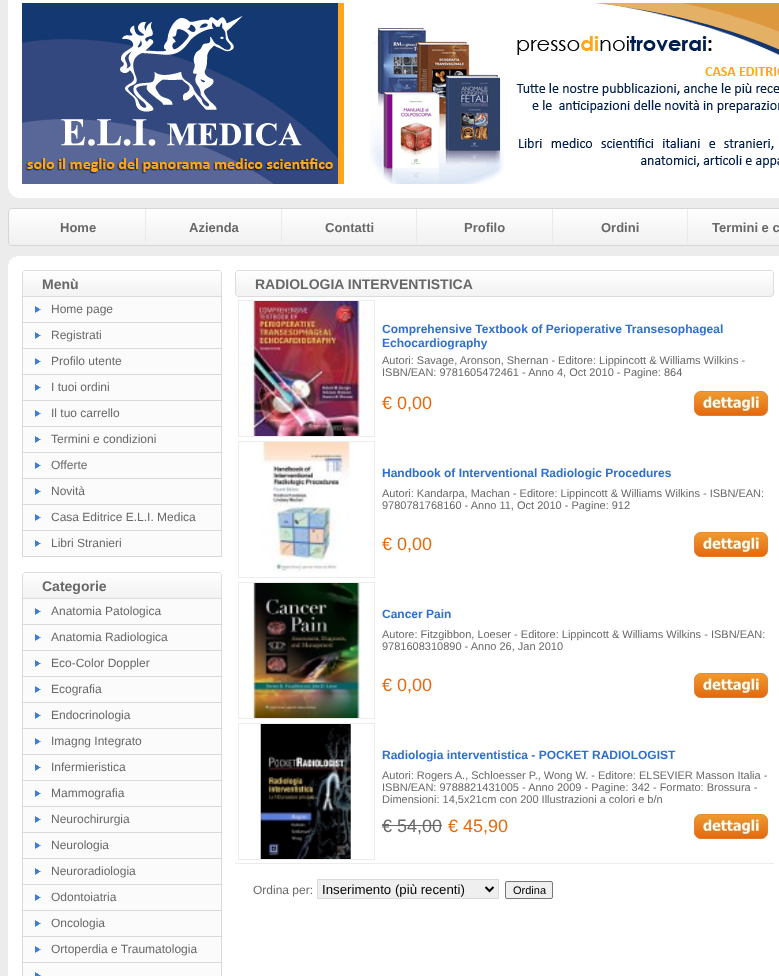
<!DOCTYPE html>
<meta charset="utf-8">
<style>body { margin: 0 } canvas { display: block }</style>
<canvas id="canvas" width="779" height="976"></canvas>
<img id="img1" src="images/1.png" hidden>
<img id="img2" src="images/2.png" hidden>
<img id="img3" src="images/3.png" hidden>
<img id="img4" src="images/4.png" hidden>
<img id="img5" src="images/5.png" hidden>
<img id="img6" src="images/6.png" hidden>
<img id="img7" src="images/7.png" hidden>
<img id="img8" src="images/8.png" hidden>
<img id="img9" src="images/9.png" hidden>
<img id="img10" src="images/10.png" hidden>
<img id="img11" src="images/11.png" hidden>
<img id="img12" src="images/12.png" hidden>
<img id="img13" src="images/13.png" hidden>
<img id="img14" src="images/14.png" hidden>
<img id="img15" src="images/15.png" hidden>
<img id="img16" src="images/16.png" hidden>
<img id="img17" src="images/17.png" hidden>
<img id="img18" src="images/18.png" hidden>
<img id="img19" src="images/19.png" hidden>
<img id="img20" src="images/20.png" hidden>
<img id="img21" src="images/21.png" hidden>
<img id="img22" src="images/22.png" hidden>
<script>
window.onload = function () {
    const canvas = document.getElementById('canvas');
    const context = canvas.getContext('2d');
    context.miterLimit = 4;
    context.fontKerning = 'normal';

    context.fillStyle = 'rgb(236, 236, 236)';
    context.fillRect(0, 0, 779, 976);
    context.fillStyle = 'rgb(255, 255, 255)';
    context.fillRect(8, 0, 771, 187);
    context.drawImage(document.getElementById('img1'), 22, 3, 322, 181);
    context.drawImage(document.getElementById('img2'), 370, 3, 409, 181);
    context.drawImage(document.getElementById('img3'), 8, 187, 11, 11);
    context.fillRect(19, 187, 760, 11);
    context.drawImage(document.getElementById('img4'), 8, 208, 4, 38);
    context.drawImage(document.getElementById('img5'), 12, 208, 132, 38);
    context.drawImage(document.getElementById('img6'), 144, 208, 3, 38);
    context.drawImage(document.getElementById('img7'), 147, 208, 133, 38);
    context.drawImage(document.getElementById('img6'), 280, 208, 3, 38);
    context.drawImage(document.getElementById('img5'), 283, 208, 132, 38);
    context.drawImage(document.getElementById('img6'), 415, 208, 3, 38);
    context.drawImage(document.getElementById('img7'), 418, 208, 133, 38);
    context.drawImage(document.getElementById('img6'), 551, 208, 3, 38);
    context.drawImage(document.getElementById('img5'), 554, 208, 132, 38);
    context.drawImage(document.getElementById('img6'), 686, 208, 3, 38);
    context.drawImage(document.getElementById('img8'), 689, 208, 90, 38);
    context.drawImage(document.getElementById('img9'), 8, 256, 11, 11);
    context.fillRect(19, 256, 760, 11);
    context.fillRect(8, 267, 771, 709);
    context.drawImage(document.getElementById('img10'), 22, 270, 5, 27);
    context.drawImage(document.getElementById('img11'), 27, 270, 190, 27);
    context.drawImage(document.getElementById('img12'), 217, 270, 5, 27);
    context.fillStyle = 'rgb(251, 251, 251)';
    context.fillRect(23, 297, 198, 25);
    context.fillStyle = 'rgb(217, 217, 217)';
    context.fillRect(221, 297, 1, 260);
    context.fillRect(22, 322, 200, 1);
    context.fillRect(22, 297, 1, 26);
    context.drawImage(document.getElementById('img13'), 35, 306, 6, 7);
    context.fillStyle = 'rgb(251, 251, 251)';
    context.fillRect(23, 323, 198, 25);
    context.fillStyle = 'rgb(217, 217, 217)';
    context.fillRect(22, 348, 200, 1);
    context.fillRect(22, 323, 1, 26);
    context.drawImage(document.getElementById('img13'), 35, 332, 6, 7);
    context.fillStyle = 'rgb(251, 251, 251)';
    context.fillRect(23, 349, 198, 25);
    context.fillStyle = 'rgb(217, 217, 217)';
    context.fillRect(22, 374, 200, 1);
    context.fillRect(22, 349, 1, 26);
    context.drawImage(document.getElementById('img13'), 35, 358, 6, 7);
    context.fillStyle = 'rgb(251, 251, 251)';
    context.fillRect(23, 375, 198, 25);
    context.fillStyle = 'rgb(217, 217, 217)';
    context.fillRect(22, 400, 200, 1);
    context.fillRect(22, 375, 1, 26);
    context.drawImage(document.getElementById('img13'), 35, 384, 6, 7);
    context.fillStyle = 'rgb(251, 251, 251)';
    context.fillRect(23, 401, 198, 25);
    context.fillStyle = 'rgb(217, 217, 217)';
    context.fillRect(22, 426, 200, 1);
    context.fillRect(22, 401, 1, 26);
    context.drawImage(document.getElementById('img13'), 35, 410, 6, 7);
    context.fillStyle = 'rgb(251, 251, 251)';
    context.fillRect(23, 427, 198, 25);
    context.fillStyle = 'rgb(217, 217, 217)';
    context.fillRect(22, 452, 200, 1);
    context.fillRect(22, 427, 1, 26);
    context.drawImage(document.getElementById('img13'), 35, 436, 6, 7);
    context.fillStyle = 'rgb(251, 251, 251)';
    context.fillRect(23, 453, 198, 25);
    context.fillStyle = 'rgb(217, 217, 217)';
    context.fillRect(22, 478, 200, 1);
    context.fillRect(22, 453, 1, 26);
    context.drawImage(document.getElementById('img13'), 35, 462, 6, 7);
    context.fillStyle = 'rgb(251, 251, 251)';
    context.fillRect(23, 479, 198, 25);
    context.fillStyle = 'rgb(217, 217, 217)';
    context.fillRect(22, 504, 200, 1);
    context.fillRect(22, 479, 1, 26);
    context.drawImage(document.getElementById('img13'), 35, 488, 6, 7);
    context.fillStyle = 'rgb(251, 251, 251)';
    context.fillRect(23, 505, 198, 25);
    context.fillStyle = 'rgb(217, 217, 217)';
    context.fillRect(22, 530, 200, 1);
    context.fillRect(22, 505, 1, 26);
    context.drawImage(document.getElementById('img13'), 35, 514, 6, 7);
    context.fillStyle = 'rgb(251, 251, 251)';
    context.fillRect(23, 531, 198, 25);
    context.fillStyle = 'rgb(217, 217, 217)';
    context.fillRect(22, 556, 200, 1);
    context.fillRect(22, 531, 1, 26);
    context.drawImage(document.getElementById('img13'), 35, 540, 6, 7);
    context.drawImage(document.getElementById('img10'), 22, 572, 5, 27);
    context.drawImage(document.getElementById('img11'), 27, 572, 190, 27);
    context.drawImage(document.getElementById('img12'), 217, 572, 5, 27);
    context.fillStyle = 'rgb(251, 251, 251)';
    context.fillRect(23, 599, 198, 25);
    context.fillStyle = 'rgb(217, 217, 217)';
    context.fillRect(221, 599, 1, 377);
    context.fillRect(22, 624, 200, 1);
    context.fillRect(22, 599, 1, 26);
    context.drawImage(document.getElementById('img13'), 35, 608, 6, 7);
    context.fillStyle = 'rgb(251, 251, 251)';
    context.fillRect(23, 625, 198, 25);
    context.fillStyle = 'rgb(217, 217, 217)';
    context.fillRect(22, 650, 200, 1);
    context.fillRect(22, 625, 1, 26);
    context.drawImage(document.getElementById('img13'), 35, 634, 6, 7);
    context.fillStyle = 'rgb(251, 251, 251)';
    context.fillRect(23, 651, 198, 25);
    context.fillStyle = 'rgb(217, 217, 217)';
    context.fillRect(22, 676, 200, 1);
    context.fillRect(22, 651, 1, 26);
    context.drawImage(document.getElementById('img13'), 35, 660, 6, 7);
    context.fillStyle = 'rgb(251, 251, 251)';
    context.fillRect(23, 677, 198, 25);
    context.fillStyle = 'rgb(217, 217, 217)';
    context.fillRect(22, 702, 200, 1);
    context.fillRect(22, 677, 1, 26);
    context.drawImage(document.getElementById('img13'), 35, 686, 6, 7);
    context.fillStyle = 'rgb(251, 251, 251)';
    context.fillRect(23, 703, 198, 25);
    context.fillStyle = 'rgb(217, 217, 217)';
    context.fillRect(22, 728, 200, 1);
    context.fillRect(22, 703, 1, 26);
    context.drawImage(document.getElementById('img13'), 35, 712, 6, 7);
    context.fillStyle = 'rgb(251, 251, 251)';
    context.fillRect(23, 729, 198, 25);
    context.fillStyle = 'rgb(217, 217, 217)';
    context.fillRect(22, 754, 200, 1);
    context.fillRect(22, 729, 1, 26);
    context.drawImage(document.getElementById('img13'), 35, 738, 6, 7);
    context.fillStyle = 'rgb(251, 251, 251)';
    context.fillRect(23, 755, 198, 25);
    context.fillStyle = 'rgb(217, 217, 217)';
    context.fillRect(22, 780, 200, 1);
    context.fillRect(22, 755, 1, 26);
    context.drawImage(document.getElementById('img13'), 35, 764, 6, 7);
    context.fillStyle = 'rgb(251, 251, 251)';
    context.fillRect(23, 781, 198, 25);
    context.fillStyle = 'rgb(217, 217, 217)';
    context.fillRect(22, 806, 200, 1);
    context.fillRect(22, 781, 1, 26);
    context.drawImage(document.getElementById('img13'), 35, 790, 6, 7);
    context.fillStyle = 'rgb(251, 251, 251)';
    context.fillRect(23, 807, 198, 25);
    context.fillStyle = 'rgb(217, 217, 217)';
    context.fillRect(22, 832, 200, 1);
    context.fillRect(22, 807, 1, 26);
    context.drawImage(document.getElementById('img13'), 35, 816, 6, 7);
    context.fillStyle = 'rgb(251, 251, 251)';
    context.fillRect(23, 833, 198, 25);
    context.fillStyle = 'rgb(217, 217, 217)';
    context.fillRect(22, 858, 200, 1);
    context.fillRect(22, 833, 1, 26);
    context.drawImage(document.getElementById('img13'), 35, 842, 6, 7);
    context.fillStyle = 'rgb(251, 251, 251)';
    context.fillRect(23, 859, 198, 25);
    context.fillStyle = 'rgb(217, 217, 217)';
    context.fillRect(22, 884, 200, 1);
    context.fillRect(22, 859, 1, 26);
    context.drawImage(document.getElementById('img13'), 35, 868, 6, 7);
    context.fillStyle = 'rgb(251, 251, 251)';
    context.fillRect(23, 885, 198, 25);
    context.fillStyle = 'rgb(217, 217, 217)';
    context.fillRect(22, 910, 200, 1);
    context.fillRect(22, 885, 1, 26);
    context.drawImage(document.getElementById('img13'), 35, 894, 6, 7);
    context.fillStyle = 'rgb(251, 251, 251)';
    context.fillRect(23, 911, 198, 25);
    context.fillStyle = 'rgb(217, 217, 217)';
    context.fillRect(22, 936, 200, 1);
    context.fillRect(22, 911, 1, 26);
    context.drawImage(document.getElementById('img13'), 35, 920, 6, 7);
    context.fillStyle = 'rgb(251, 251, 251)';
    context.fillRect(23, 937, 198, 25);
    context.fillStyle = 'rgb(217, 217, 217)';
    context.fillRect(22, 962, 200, 1);
    context.fillRect(22, 937, 1, 39);
    context.drawImage(document.getElementById('img13'), 35, 946, 6, 7);
    context.fillStyle = 'rgb(251, 251, 251)';
    context.fillRect(23, 963, 198, 13);
    context.drawImage(document.getElementById('img14'), 35, 972, 6, 4);
    context.drawImage(document.getElementById('img15'), 235, 270, 5, 27);
    context.drawImage(document.getElementById('img16'), 240, 270, 529, 27);
    context.drawImage(document.getElementById('img17'), 769, 270, 5, 27);
    context.fillStyle = 'rgb(236, 236, 236)';
    context.fillRect(235, 863, 539, 1);
    context.strokeStyle = 'rgb(236, 236, 236)';
    context.strokeRect(238.5, 300.5, 136, 136);
    context.drawImage(document.getElementById('img18'), 239, 301, 131, 135);
    context.drawImage(document.getElementById('img19'), 694, 391, 74, 25);
    context.strokeRect(238.5, 441.5, 136, 136);
    context.drawImage(document.getElementById('img20'), 260, 442, 94, 131);
    context.drawImage(document.getElementById('img19'), 694, 532, 74, 25);
    context.strokeRect(238.5, 582.5, 136, 136);
    context.drawImage(document.getElementById('img21'), 252, 583, 109, 135);
    context.drawImage(document.getElementById('img19'), 694, 673, 74, 25);
    context.strokeRect(238.5, 723.5, 136, 136);
    context.drawImage(document.getElementById('img22'), 260, 724, 91, 135);
    context.fillStyle = 'rgb(104, 104, 104)';
    context.fillRect(382, 825, 60, 1);
    context.drawImage(document.getElementById('img19'), 694, 814, 74, 25);
    context.fillStyle = 'rgb(239, 239, 239)';
    context.beginPath();
    context.rect(317.5, 879.5, 181, 19);
    context.fill();
    context.strokeStyle = 'rgb(217, 217, 217)';
    context.stroke();
    context.beginPath();
    context.moveTo(485.5, 887);
    context.lineTo(489.5, 891);
    context.lineTo(493.5, 887);
    context.strokeStyle = 'rgb(0, 0, 0)';
    context.lineWidth = 2;
    context.stroke();
    context.beginPath();
    context.roundRect(505.5, 881.5, 47, 17, 1.5);
    context.fill();
    context.strokeStyle = 'rgb(118, 118, 118)';
    context.lineWidth = 1;
    context.stroke();
    context.font = 'bold 13px Liberation Sans';
    context.fillStyle = 'rgb(104, 104, 104)';
    context.fillText('Home', 60, 232);
    context.fillText('Azienda', 189, 232);
    context.fillText('Contatti', 325, 232);
    context.fillText('Profilo', 464, 232);
    context.fillText('Ordini', 601, 232);
    context.fillText('Termini e c', 712, 232);
    context.font = 'bold 14px Liberation Sans';
    context.fillText('Menù', 42, 289);
    context.font = '12px Liberation Sans';
    context.fillText('Home page', 51, 313);
    context.fillText('Registrati', 51, 339);
    context.fillText('Profilo utente', 51, 365);
    context.fillText('I tuoi ordini', 51, 391);
    context.fillText('Il tuo carrello', 51, 417);
    context.fillText('Termini e condizioni', 51, 443);
    context.fillText('Offerte', 51, 469);
    context.fillText('Novità', 51, 495);
    context.fillText('Casa Editrice E.L.I. Medica', 51, 521);
    context.fillText('Libri Stranieri', 51, 547);
    context.font = 'bold 14px Liberation Sans';
    context.fillText('Categorie', 42, 591);
    context.font = '12px Liberation Sans';
    context.fillText('Anatomia Patologica', 51, 615);
    context.fillText('Anatomia Radiologica', 51, 641);
    context.fillText('Eco-Color Doppler', 51, 667);
    context.fillText('Ecografia', 51, 693);
    context.fillText('Endocrinologia', 51, 719);
    context.fillText('Imagng Integrato', 51, 745);
    context.fillText('Infermieristica', 51, 771);
    context.fillText('Mammografia', 51, 797);
    context.fillText('Neurochirurgia', 51, 823);
    context.fillText('Neurologia', 51, 849);
    context.fillText('Neuroradiologia', 51, 875);
    context.fillText('Odontoiatria', 51, 901);
    context.fillText('Oncologia', 51, 927);
    context.fillText('Ortoperdia e Traumatologia', 51, 953);
    context.font = 'bold 14px Liberation Sans';
    context.fillText('RADIOLOGIA INTERVENTISTICA', 255, 289);
    context.font = 'bold 12px Liberation Sans';
    context.fillStyle = 'rgb(46, 112, 204)';
    context.fillText('Comprehensive Textbook of Perioperative Transesophageal', 382, 333);
    context.fillText('Echocardiography', 382, 347);
    context.font = '11px Liberation Sans';
    context.fillStyle = 'rgb(104, 104, 104)';
    context.fillText('Autori: Savage, Aronson, Shernan - Editore: Lippincott & Williams Wilkins -', 382, 364);
    context.fillText('ISBN/EAN: 9781605472461 - Anno 4, Oct 2010 - Pagine: 864', 382, 376);
    context.font = '18px Liberation Sans';
    context.fillStyle = 'rgb(230, 105, 13)';
    context.fillText('€ 0,00', 382, 409);
    context.font = 'bold 12px Liberation Sans';
    context.fillStyle = 'rgb(46, 112, 204)';
    context.fillText('Handbook of Interventional Radiologic Procedures', 382, 477);
    context.font = '11px Liberation Sans';
    context.fillStyle = 'rgb(104, 104, 104)';
    context.fillText('Autori: Kandarpa, Machan - Editore: Lippincott & Williams Wilkins - ISBN/EAN:', 382, 497);
    context.fillText('9780781768160 - Anno 11, Oct 2010 - Pagine: 912', 382, 509);
    context.font = '18px Liberation Sans';
    context.fillStyle = 'rgb(230, 105, 13)';
    context.fillText('€ 0,00', 382, 550);
    context.font = 'bold 12px Liberation Sans';
    context.fillStyle = 'rgb(46, 112, 204)';
    context.fillText('Cancer Pain', 382, 618);
    context.font = '11px Liberation Sans';
    context.fillStyle = 'rgb(104, 104, 104)';
    context.fillText('Autore: Fitzgibbon, Loeser - Editore: Lippincott & Williams Wilkins - ISBN/EAN:', 382, 638);
    context.fillText('9781608310890 - Anno 26, Jan 2010', 382, 650);
    context.font = '18px Liberation Sans';
    context.fillStyle = 'rgb(230, 105, 13)';
    context.fillText('€ 0,00', 382, 691);
    context.font = 'bold 12px Liberation Sans';
    context.fillStyle = 'rgb(46, 112, 204)';
    context.fillText('Radiologia interventistica - POCKET RADIOLOGIST', 382, 759);
    context.font = '11px Liberation Sans';
    context.fillStyle = 'rgb(104, 104, 104)';
    context.fillText('Autori: Rogers A., Schloesser P., Wong W. - Editore: ELSEVIER Masson Italia -', 382, 779);
    context.fillText('ISBN/EAN: 9788821431005 - Anno 2009 - Pagine: 342 - Formato: Brossura -', 382, 791);
    context.fillText('Dimensioni: 14,5x21cm con 200 Illustrazioni a colori e b/n', 382, 803);
    context.font = '18px Liberation Sans';
    context.fillText('€ 54,00', 382, 832);
    context.fillStyle = 'rgb(230, 105, 13)';
    context.fillText('€ 45,90', 448, 832);
    context.font = '12px Liberation Sans';
    context.fillStyle = 'rgb(104, 104, 104)';
    context.fillText('Ordina per:', 253, 894);
    context.font = '13.25px Liberation Sans';
    context.fillStyle = 'rgb(0, 0, 0)';
    context.fillText('Inserimento (più recenti)', 322, 894);
    context.font = '11px Liberation Sans';
    context.fillText('Ordina', 513, 894);
};
</script>
